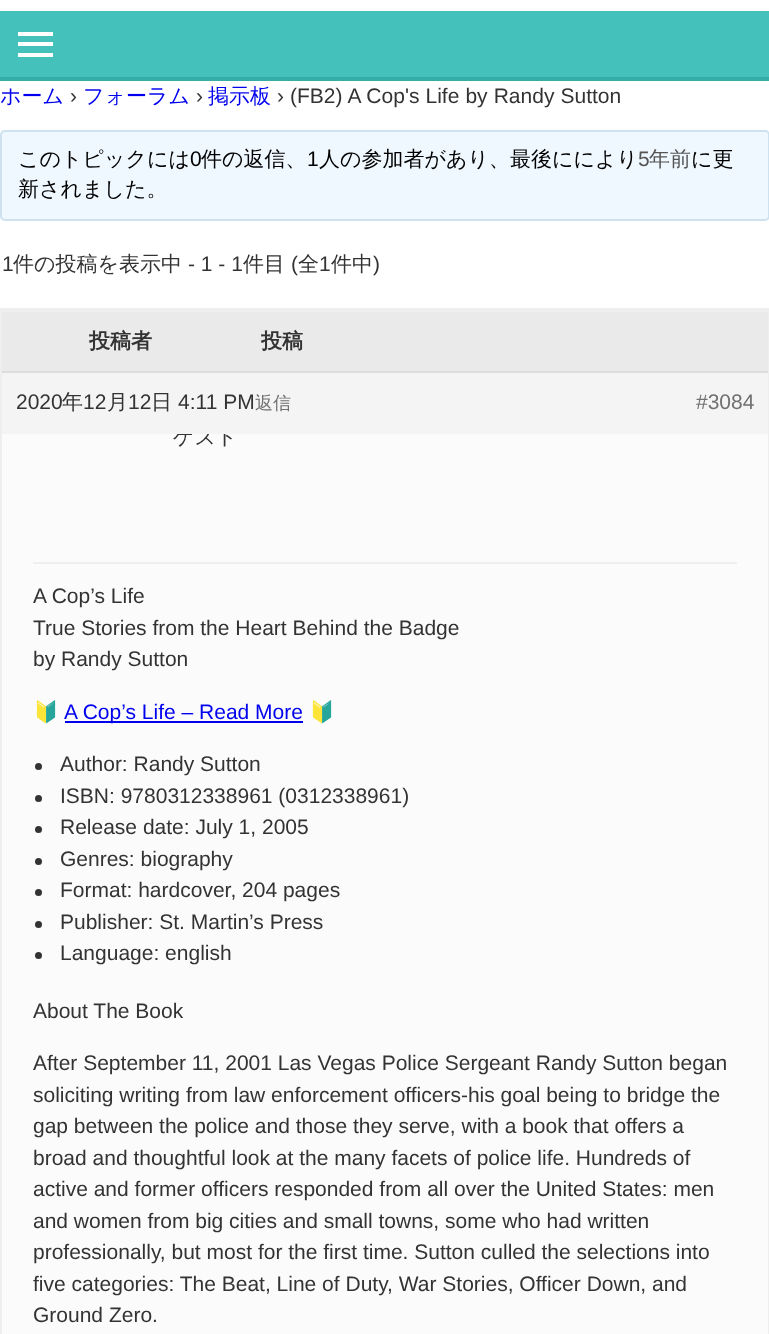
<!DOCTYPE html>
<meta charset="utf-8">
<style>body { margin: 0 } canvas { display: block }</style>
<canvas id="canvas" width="769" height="1334"></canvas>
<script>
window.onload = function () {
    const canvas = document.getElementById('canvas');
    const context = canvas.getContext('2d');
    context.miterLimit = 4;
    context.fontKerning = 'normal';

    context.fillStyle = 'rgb(255, 255, 255)';
    context.fillRect(0, 0, 769, 1334);
    context.fillStyle = 'rgb(67, 193, 186)';
    context.fillRect(0, 11, 769, 66);
    context.fillStyle = 'rgb(53, 172, 165)';
    context.fillRect(0, 77, 769, 4);
    context.fillStyle = 'rgb(255, 255, 255)';
    context.fillRect(18, 32, 35, 4);
    context.fillRect(18, 42, 35, 4);
    context.fillRect(18, 53, 35, 4);
    context.fillStyle = 'rgb(240, 248, 255)';
    context.beginPath();
    context.roundRect(1, 131, 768, 89, 4);
    context.fill();
    context.strokeStyle = 'rgb(206, 225, 239)';
    context.lineWidth = 2;
    context.stroke();
    context.strokeStyle = 'rgb(238, 238, 238)';
    context.strokeRect(1, 309, 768, 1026);
    context.fillStyle = 'rgb(234, 234, 234)';
    context.fillRect(2, 312, 766, 59);
    context.fillStyle = 'rgb(238, 238, 238)';
    context.fillRect(2, 310, 766, 2);
    context.fillStyle = 'rgb(244, 244, 244)';
    context.fillRect(2, 373, 766, 61);
    context.fillStyle = 'rgb(221, 221, 221)';
    context.fillRect(2, 371, 766, 2);
    context.fillStyle = 'rgb(251, 251, 251)';
    context.fillRect(2, 434, 766, 900);
    context.fillStyle = 'rgb(239, 239, 239)';
    context.fillRect(33, 562, 704, 2);
    context.fillStyle = 'rgb(0, 0, 238)';
    context.fillRect(65, 721, 238, 2);
    context.fillStyle = 'rgb(51, 51, 51)';
    context.beginPath();
    context.arc(38.5, 766.5, 3.5, 0, 2 * Math.PI);
    context.fill();
    context.beginPath();
    context.arc(38.5, 798.5, 3.5, 0, 2 * Math.PI);
    context.fill();
    context.beginPath();
    context.arc(38.5, 829.5, 3.5, 0, 2 * Math.PI);
    context.fill();
    context.beginPath();
    context.arc(38.5, 861.5, 3.5, 0, 2 * Math.PI);
    context.fill();
    context.beginPath();
    context.arc(38.5, 892.5, 3.5, 0, 2 * Math.PI);
    context.fill();
    context.beginPath();
    context.arc(38.5, 924.5, 3.5, 0, 2 * Math.PI);
    context.fill();
    context.beginPath();
    context.arc(38.5, 955.5, 3.5, 0, 2 * Math.PI);
    context.fill();
    context.font = '500 21px WenQuanYi Zen Hei';
    context.fillStyle = 'rgb(0, 0, 238)';
    context.fillText('ホーム', 0, 103);
    context.font = '21px Liberation Sans';
    context.fillStyle = 'rgb(51, 51, 51)';
    context.fillText('›', 70, 103);
    context.font = '500 21px WenQuanYi Zen Hei';
    context.fillStyle = 'rgb(0, 0, 238)';
    context.fillText('フォーラム', 83, 103);
    context.font = '21px Liberation Sans';
    context.fillStyle = 'rgb(51, 51, 51)';
    context.fillText('›', 196, 103);
    context.font = '500 21px WenQuanYi Zen Hei';
    context.fillStyle = 'rgb(0, 0, 238)';
    context.fillText('掲示板', 208, 103);
    context.font = '21px Liberation Sans';
    context.fillStyle = 'rgb(51, 51, 51)';
    context.fillText('›', 277, 103);
    context.wordSpacing = '0.25px';
    context.fillText('(FB2) A Cop\'s Life by Randy Sutton', 290, 103);
    context.wordSpacing = '0px';
    context.font = '500 21px WenQuanYi Zen Hei';
    context.fillStyle = 'rgb(0, 0, 0)';
    context.fillText('このトピックには', 18, 166);
    context.font = '21px Liberation Sans';
    context.fillText('0', 190, 166);
    context.font = '500 21px WenQuanYi Zen Hei';
    context.fillText('件の返信、', 201, 166);
    context.font = '21px Liberation Sans';
    context.fillText('1', 307, 166);
    context.font = '500 21px WenQuanYi Zen Hei';
    context.fillText('人の参加者があり、最後ににより', 319, 166);
    context.font = '21px Liberation Sans';
    context.fillStyle = 'rgb(85, 85, 85)';
    context.fillText('5', 638, 166);
    context.font = '500 21px WenQuanYi Zen Hei';
    context.fillText('年前', 649, 166);
    context.fillStyle = 'rgb(0, 0, 0)';
    context.fillText('に更', 691, 166);
    context.fillText('新されました。', 18, 196);
    context.font = '21px Liberation Sans';
    context.fillStyle = 'rgb(51, 51, 51)';
    context.fillText('1', 2, 271);
    context.font = '500 21px WenQuanYi Zen Hei';
    context.fillText('件の投稿を表示中', 13, 271);
    context.font = '21px Liberation Sans';
    context.fillText('- 1 - 1', 188, 271);
    context.font = '500 21px WenQuanYi Zen Hei';
    context.fillText('件目', 243, 271);
    context.font = '21px Liberation Sans';
    context.fillText('(', 291, 271);
    context.font = '500 21px WenQuanYi Zen Hei';
    context.fillText('全', 298, 271);
    context.font = '21px Liberation Sans';
    context.fillText('1', 319, 271);
    context.font = '500 21px WenQuanYi Zen Hei';
    context.fillText('件中', 331, 271);
    context.font = '21px Liberation Sans';
    context.fillText(')', 373, 271);
    context.font = 'bold 21px WenQuanYi Zen Hei';
    context.fillText('投稿者', 89, 348);
    context.fillText('投稿', 261, 348);
    context.font = '21px Liberation Sans';
    context.fillText('2020', 16, 409);
    context.font = '500 21px WenQuanYi Zen Hei';
    context.fillText('年', 62, 409);
    context.font = '21px Liberation Sans';
    context.fillText('12', 83, 409);
    context.font = '500 21px WenQuanYi Zen Hei';
    context.fillText('月', 107, 409);
    context.font = '21px Liberation Sans';
    context.fillText('12', 128, 409);
    context.font = '500 21px WenQuanYi Zen Hei';
    context.fillText('日', 151, 409);
    context.font = '21px Liberation Sans';
    context.fillText('4:11 PM', 178, 409);
    context.font = '500 18px WenQuanYi Zen Hei';
    context.fillStyle = 'rgb(112, 112, 112)';
    context.fillText('返信', 255, 409);
    context.font = '21px Liberation Sans';
    context.fillText('#3084', 696, 409);
    context.save();
    context.beginPath();
    context.rect(2, 434, 766, 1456);
    context.clip();
    context.font = '500 21px WenQuanYi Zen Hei';
    context.fillStyle = 'rgb(51, 51, 51)';
    context.fillText('ゲスト', 173, 444);
    context.restore();
    context.fillStyle = 'rgb(51, 51, 51)';
    context.fillText('A Cop’s Life', 33, 603);
    context.fillText('True Stories from the Heart Behind the Badge', 33, 635);
    context.fillText('by Randy Sutton', 33, 666);
    context.font = '21px Noto Color Emoji';
    context.fillText('🔰', 33, 719);
    context.font = '21px Liberation Sans';
    context.fillStyle = 'rgb(0, 0, 238)';
    context.fillText('A Cop’s Life – Read More', 64, 719);
    context.font = '21px Noto Color Emoji';
    context.fillStyle = 'rgb(51, 51, 51)';
    context.fillText('🔰', 309, 719);
    context.font = '21px Liberation Sans';
    context.fillText('Author: Randy Sutton', 60, 771);
    context.fillText('ISBN: 9780312338961 (0312338961)', 60, 803);
    context.fillText('Release date: July 1, 2005', 60, 834);
    context.fillText('Genres: biography', 60, 866);
    context.fillText('Format: hardcover, 204 pages', 60, 897);
    context.fillText('Publisher: St. Martin’s Press', 60, 929);
    context.fillText('Language: english', 60, 960);
    context.fillText('About The Book', 33, 1018);
    context.fillText('After September 11, 2001 Las Vegas Police Sergeant Randy Sutton began', 33, 1070);
    context.fillText('soliciting writing from law enforcement officers-his goal being to bridge the', 33, 1102);
    context.fillText('gap between the police and those they serve, with a book that offers a', 33, 1133);
    context.fillText('broad and thoughtful look at the many facets of police life. Hundreds of', 33, 1165);
    context.fillText('active and former officers responded from all over the United States: men', 33, 1196);
    context.fillText('and women from big cities and small towns, some who had written', 33, 1228);
    context.fillText('professionally, but most for the first time. Sutton culled the selections into', 33, 1259);
    context.fillText('five categories: The Beat, Line of Duty, War Stories, Officer Down, and', 33, 1291);
    context.fillText('Ground Zero.', 33, 1322);
};
</script>
